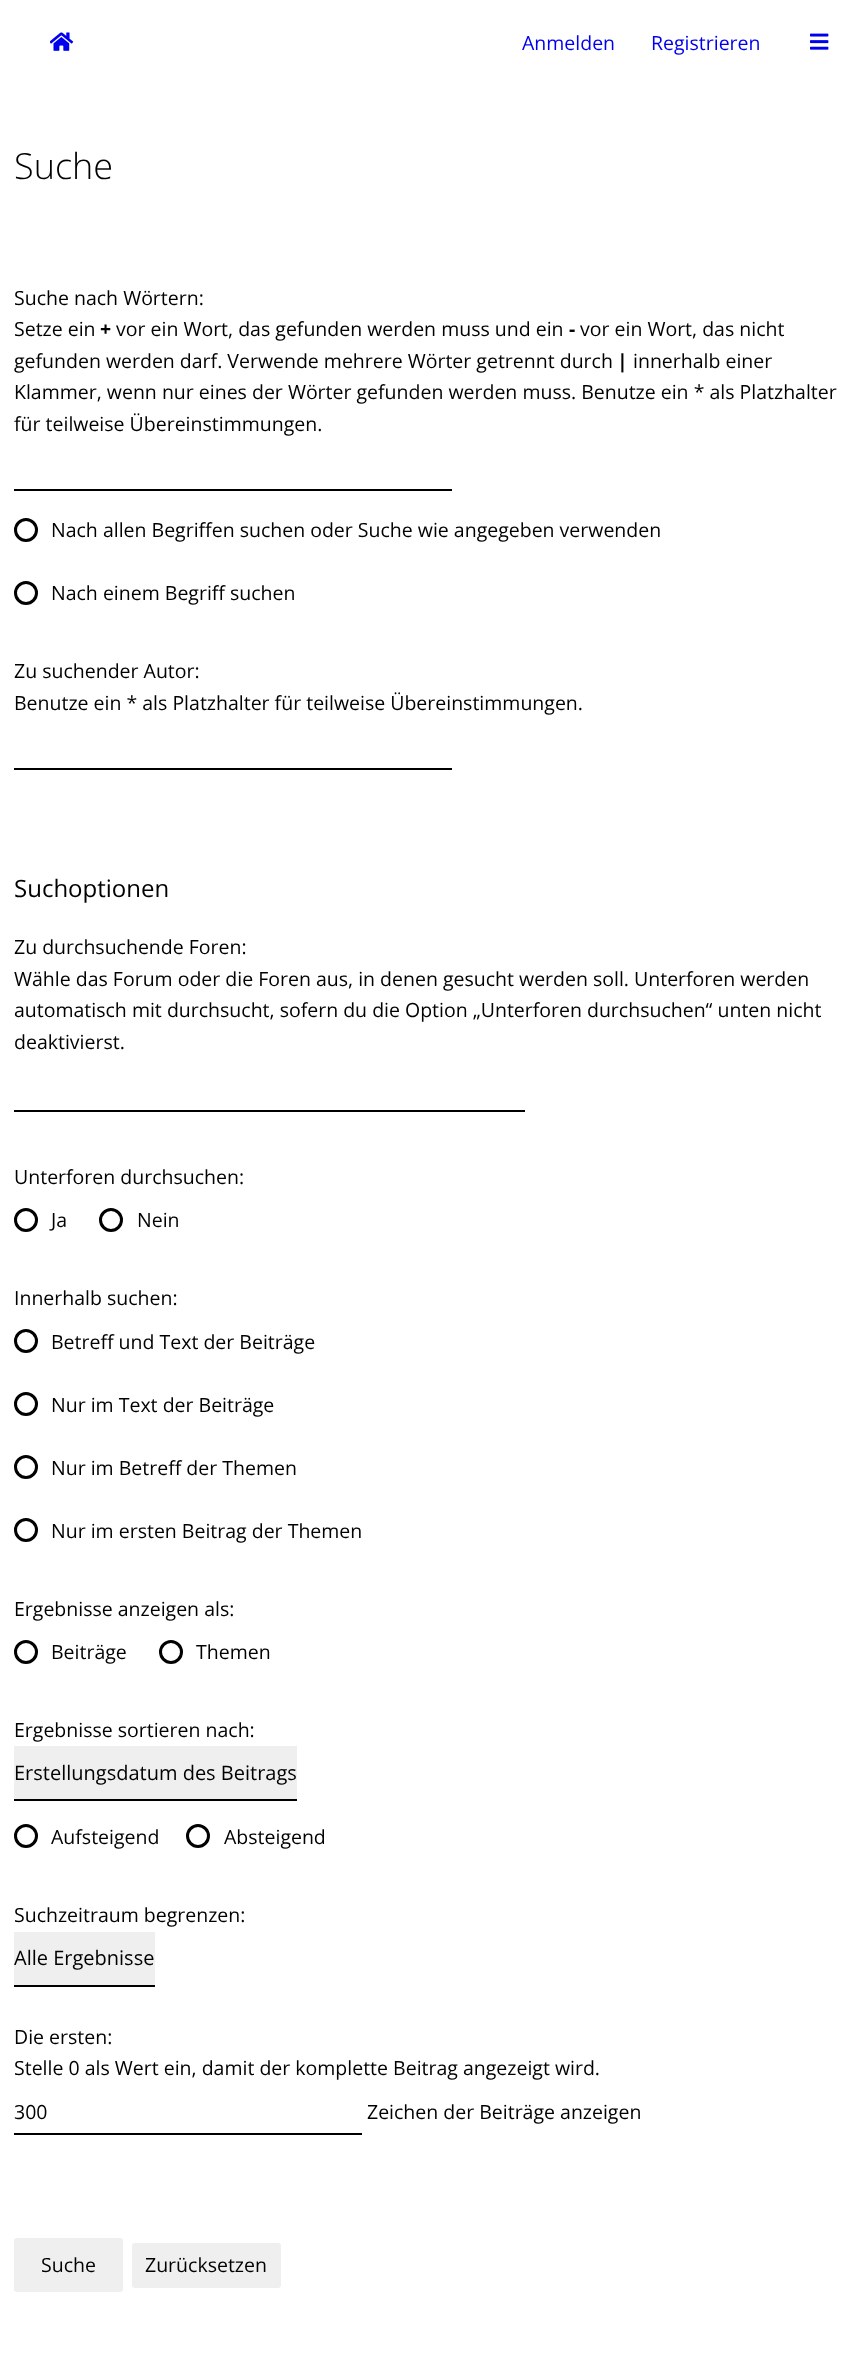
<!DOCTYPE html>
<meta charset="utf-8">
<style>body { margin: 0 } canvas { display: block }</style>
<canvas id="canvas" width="855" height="2357"></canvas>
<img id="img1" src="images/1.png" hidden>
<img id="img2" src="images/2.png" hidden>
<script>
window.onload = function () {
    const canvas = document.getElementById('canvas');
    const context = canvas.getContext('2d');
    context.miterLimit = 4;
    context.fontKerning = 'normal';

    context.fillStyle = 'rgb(255, 255, 255)';
    context.fillRect(0, 0, 855, 2357);
    context.drawImage(document.getElementById('img1'), 50, 32, 24, 19);
    context.drawImage(document.getElementById('img2'), 810, 33, 19, 17);
    context.fillStyle = 'rgb(0, 0, 0)';
    context.fillRect(14, 489, 438, 2);
    context.beginPath();
    context.arc(26, 530, 10.5, 0, 2 * Math.PI);
    context.strokeStyle = 'rgb(0, 0, 0)';
    context.lineWidth = 3;
    context.stroke();
    context.beginPath();
    context.arc(26, 593, 10.5, 0, 2 * Math.PI);
    context.stroke();
    context.fillRect(14, 768, 438, 2);
    context.fillRect(14, 1110, 511, 2);
    context.beginPath();
    context.arc(26, 1220, 10.5, 0, 2 * Math.PI);
    context.stroke();
    context.beginPath();
    context.arc(111, 1220, 10.5, 0, 2 * Math.PI);
    context.stroke();
    context.beginPath();
    context.arc(26, 1341, 10.5, 0, 2 * Math.PI);
    context.stroke();
    context.beginPath();
    context.arc(26, 1404, 10.5, 0, 2 * Math.PI);
    context.stroke();
    context.beginPath();
    context.arc(26, 1467, 10.5, 0, 2 * Math.PI);
    context.stroke();
    context.beginPath();
    context.arc(26, 1530, 10.5, 0, 2 * Math.PI);
    context.stroke();
    context.beginPath();
    context.arc(26, 1652, 10.5, 0, 2 * Math.PI);
    context.stroke();
    context.beginPath();
    context.arc(171, 1652, 10.5, 0, 2 * Math.PI);
    context.stroke();
    context.fillStyle = 'rgb(239, 239, 239)';
    context.fillRect(14, 1746, 283, 53);
    context.fillStyle = 'rgb(0, 0, 0)';
    context.fillRect(14, 1799, 283, 2);
    context.beginPath();
    context.arc(26, 1836, 10.5, 0, 2 * Math.PI);
    context.stroke();
    context.beginPath();
    context.arc(198, 1836, 10.5, 0, 2 * Math.PI);
    context.stroke();
    context.fillStyle = 'rgb(239, 239, 239)';
    context.fillRect(14, 1932, 141, 53);
    context.fillStyle = 'rgb(0, 0, 0)';
    context.fillRect(14, 1985, 141, 2);
    context.fillRect(14, 2133, 348, 2);
    context.fillStyle = 'rgb(239, 239, 239)';
    context.beginPath();
    context.roundRect(14, 2238, 109, 54, 3);
    context.fill();
    context.beginPath();
    context.roundRect(132, 2243, 149, 45, 3);
    context.fill();
    context.font = '19.5px Open Sans';
    context.fillStyle = 'rgb(0, 0, 238)';
    context.fillText('Anmelden', 522, 50);
    context.fillText('Registrieren', 651, 50);
    context.font = '300 36px Open Sans';
    context.fillStyle = 'rgb(0, 0, 0)';
    context.fillText('Suche', 14, 179);
    context.font = '19.5px Open Sans';
    context.fillText('Suche nach Wörtern:', 14, 305);
    context.fillText('Setze ein', 14, 336);
    context.font = 'bold 19.5px Open Sans';
    context.fillText('+', 100, 336);
    context.font = '19.5px Open Sans';
    context.fillText('vor ein Wort, das gefunden werden muss und ein', 116, 336);
    context.font = 'bold 19.5px Open Sans';
    context.fillText('-', 569, 336);
    context.font = '19.5px Open Sans';
    context.fillText('vor ein Wort, das nicht', 580, 336);
    context.fillText('gefunden werden darf. Verwende mehrere Wörter getrennt durch', 14, 368);
    context.font = 'bold 19.5px Open Sans';
    context.fillText('|', 617, 368);
    context.font = '19.5px Open Sans';
    context.fillText('innerhalb einer', 633, 368);
    context.fillText('Klammer, wenn nur eines der Wörter gefunden werden muss. Benutze ein * als Platzhalter', 14, 399);
    context.fillText('für teilweise Übereinstimmungen.', 14, 431);
    context.fillText('Nach allen Begriffen suchen oder Suche wie angegeben verwenden', 51, 537);
    context.fillText('Nach einem Begriff suchen', 51, 600);
    context.fillText('Zu suchender Autor:', 14, 678);
    context.fillText('Benutze ein * als Platzhalter für teilweise Übereinstimmungen.', 14, 710);
    context.font = '24px Open Sans';
    context.fillText('Suchoptionen', 14, 897);
    context.font = '19.5px Open Sans';
    context.fillText('Zu durchsuchende Foren:', 14, 954);
    context.fillText('Wähle das Forum oder die Foren aus, in denen gesucht werden soll. Unterforen werden', 14, 986);
    context.fillText('automatisch mit durchsucht, sofern du die Option „Unterforen durchsuchen“ unten nicht', 14, 1017);
    context.fillText('deaktivierst.', 14, 1049);
    context.fillText('Unterforen durchsuchen:', 14, 1184);
    context.fillText('Ja', 51, 1227);
    context.fillText('Nein', 137, 1227);
    context.fillText('Innerhalb suchen:', 14, 1305);
    context.fillText('Betreff und Text der Beiträge', 51, 1349);
    context.fillText('Nur im Text der Beiträge', 51, 1412);
    context.fillText('Nur im Betreff der Themen', 51, 1475);
    context.fillText('Nur im ersten Beitrag der Themen', 51, 1538);
    context.fillText('Ergebnisse anzeigen als:', 14, 1616);
    context.fillText('Beiträge', 51, 1659);
    context.fillText('Themen', 196, 1659);
    context.fillText('Ergebnisse sortieren nach:', 14, 1737);
    context.font = '20px Open Sans';
    context.fillText('Erstellungsdatum des Beitrags', 14, 1780);
    context.font = '19.5px Open Sans';
    context.fillText('Aufsteigend', 51, 1844);
    context.fillText('Absteigend', 224, 1844);
    context.fillText('Suchzeitraum begrenzen:', 14, 1922);
    context.font = '20px Open Sans';
    context.fillText('Alle Ergebnisse', 14, 1965);
    context.font = '19.5px Open Sans';
    context.fillText('Die ersten:', 14, 2044);
    context.fillText('Stelle 0 als Wert ein, damit der komplette Beitrag angezeigt wird.', 14, 2075);
    context.fillText('300', 14, 2119);
    context.fillText('Zeichen der Beiträge anzeigen', 367, 2119);
    context.fillText('Suche', 41, 2272);
    context.fillText('Zurücksetzen', 145, 2272);
};
</script>
